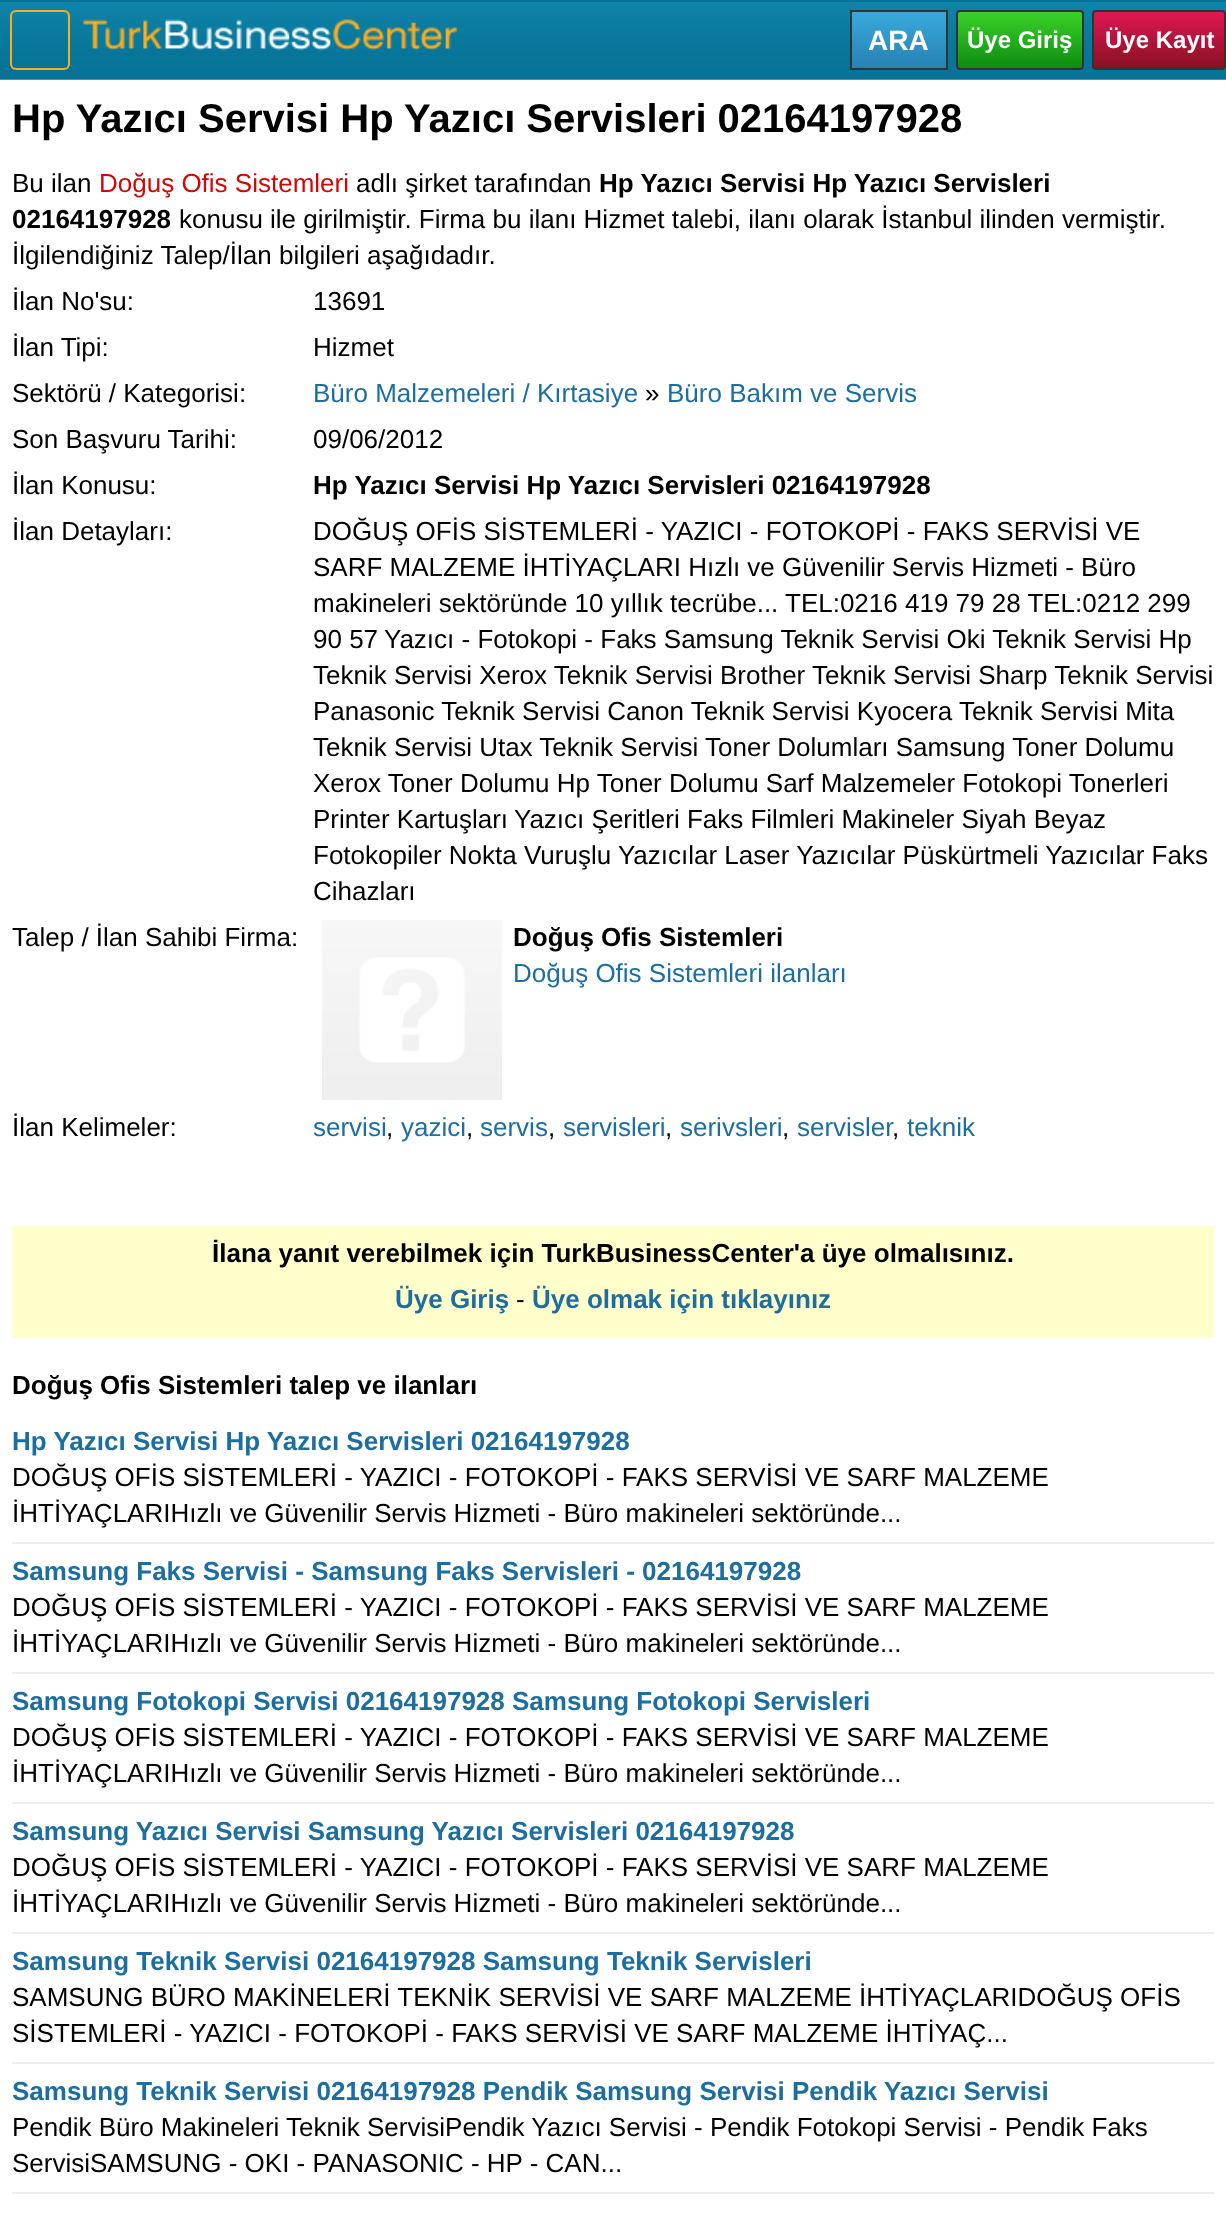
<!DOCTYPE html>
<meta charset="utf-8">
<style>body { margin: 0 } canvas { display: block }</style>
<canvas id="canvas" width="1226" height="2217"></canvas>
<img id="img1" src="images/1.png" hidden>
<img id="img2" src="images/2.png" hidden>
<img id="img3" src="images/3.png" hidden>
<img id="img4" src="images/4.png" hidden>
<script>
window.onload = function () {
    const canvas = document.getElementById('canvas');
    const context = canvas.getContext('2d');
    context.miterLimit = 4;
    context.fontKerning = 'normal';
    let gradient;

    context.fillStyle = 'rgb(255, 255, 255)';
    context.fillRect(0, 0, 1226, 2217);
    context.fillStyle = 'rgb(7, 115, 151)';
    context.fillRect(0, 0, 1226, 2);
    context.drawImage(document.getElementById('img1'), 0, 2, 1226, 78);
    context.beginPath();
    context.roundRect(11, 11, 58, 58, 5);
    context.strokeStyle = 'rgb(255, 173, 30)';
    context.lineWidth = 2;
    context.stroke();
    context.drawImage(document.getElementById('img2'), 82, 19, 376, 32);
    context.drawImage(document.getElementById('img3'), 852, 12, 94, 56);
    context.strokeStyle = 'rgb(51, 51, 51)';
    context.strokeRect(851, 11, 96, 58);
    context.save();
    context.beginPath();
    context.roundRect(956, 10, 128, 60, 4);
    context.clip();
    gradient = context.createLinearGradient(1020, 12, 1020, 68);
    gradient.addColorStop(0, 'rgb(57, 210, 40)');
    gradient.addColorStop(1, 'rgb(15, 140, 17)');
    context.fillStyle = gradient;
    context.fillRect(956, 12, 128, 56);
    context.restore();
    context.beginPath();
    context.roundRect(957, 11, 126, 58, 3);
    context.stroke();
    context.save();
    context.beginPath();
    context.roundRect(1092, 10, 134, 60, 4);
    context.clip();
    gradient = context.createLinearGradient(1159, 12, 1159, 68);
    gradient.addColorStop(0, 'rgb(223, 23, 83)');
    gradient.addColorStop(1, 'rgb(137, 17, 35)');
    context.fillStyle = gradient;
    context.fillRect(1092, 12, 134, 56);
    context.restore();
    context.beginPath();
    context.roundRect(1093, 11, 132, 58, 3);
    context.stroke();
    context.drawImage(document.getElementById('img4'), 322, 920, 180, 180);
    context.fillStyle = 'rgb(255, 255, 204)';
    context.fillRect(12, 1226, 1202, 112);
    context.fillStyle = 'rgb(238, 238, 238)';
    context.fillRect(12, 1542, 1202, 2);
    context.fillRect(12, 1672, 1202, 2);
    context.fillRect(12, 1802, 1202, 2);
    context.fillRect(12, 1932, 1202, 2);
    context.fillRect(12, 2062, 1202, 2);
    context.fillRect(12, 2192, 1202, 2);
    context.font = 'bold 28px Liberation Sans';
    context.fillStyle = 'rgb(255, 255, 255)';
    context.fillText('ARA', 868, 50);
    context.font = 'bold 24px Liberation Sans';
    context.fillText('Üye Giriş', 967, 48);
    context.fillText('Üye Kayıt', 1105, 48);
    context.font = 'bold 40px Liberation Sans';
    context.fillStyle = 'rgb(0, 0, 0)';
    context.fillText('Hp Yazıcı Servisi Hp Yazıcı Servisleri 02164197928', 12, 132);
    context.font = '26px Liberation Sans';
    context.fillText('Bu ilan', 12, 192);
    context.fillStyle = 'rgb(210, 6, 6)';
    context.fillText('Doğuş Ofis Sistemleri', 99, 192);
    context.fillStyle = 'rgb(0, 0, 0)';
    context.fillText('adlı şirket tarafından', 356, 192);
    context.font = 'bold 26px Liberation Sans';
    context.fillText('Hp Yazıcı Servisi Hp Yazıcı Servisleri', 599, 192);
    context.fillText('02164197928', 12, 228);
    context.font = '26px Liberation Sans';
    context.fillText('konusu ile girilmiştir. Firma bu ilanı Hizmet talebi, ilanı olarak İstanbul ilinden vermiştir.', 179, 228);
    context.fillText('İlgilendiğiniz Talep/İlan bilgileri aşağıdadır.', 12, 264);
    context.fillText('İlan No\'su:', 12, 310);
    context.fillText('13691', 313, 310);
    context.fillText('İlan Tipi:', 12, 356);
    context.fillText('Hizmet', 313, 356);
    context.fillText('Sektörü / Kategorisi:', 12, 402);
    context.fillStyle = 'rgb(28, 110, 160)';
    context.fillText('Büro Malzemeleri / Kırtasiye', 313, 402);
    context.fillStyle = 'rgb(0, 0, 0)';
    context.fillText('»', 645, 402);
    context.fillStyle = 'rgb(28, 110, 160)';
    context.fillText('Büro Bakım ve Servis', 667, 402);
    context.fillStyle = 'rgb(0, 0, 0)';
    context.fillText('Son Başvuru Tarihi:', 12, 448);
    context.fillText('09/06/2012', 313, 448);
    context.fillText('İlan Konusu:', 12, 494);
    context.font = 'bold 26px Liberation Sans';
    context.fillText('Hp Yazıcı Servisi Hp Yazıcı Servisleri 02164197928', 313, 494);
    context.font = '26px Liberation Sans';
    context.fillText('İlan Detayları:', 12, 540);
    context.fillText('DOĞUŞ OFİS SİSTEMLERİ - YAZICI - FOTOKOPİ - FAKS SERVİSİ VE', 313, 540);
    context.fillText('SARF MALZEME İHTİYAÇLARI Hızlı ve Güvenilir Servis Hizmeti - Büro', 313, 576);
    context.fillText('makineleri sektöründe 10 yıllık tecrübe...', 313, 612);
    context.fillText('TEL:0216 419 79 28 TEL:0212 299', 785, 612);
    context.fillText('90 57', 313, 648);
    context.fillText('Yazıcı - Fotokopi - Faks Samsung Teknik Servisi Oki Teknik Servisi Hp', 384, 648);
    context.fillText('Teknik Servisi Xerox Teknik Servisi Brother Teknik Servisi Sharp Teknik Servisi', 313, 684);
    context.fillText('Panasonic Teknik Servisi Canon Teknik Servisi Kyocera Teknik Servisi Mita', 313, 720);
    context.fillText('Teknik Servisi Utax Teknik Servisi', 313, 756);
    context.fillText('Toner Dolumları Samsung Toner Dolumu', 705, 756);
    context.fillText('Xerox Toner Dolumu Hp Toner Dolumu Sarf Malzemeler Fotokopi Tonerleri', 313, 792);
    context.fillText('Printer Kartuşları', 313, 828);
    context.fillText('Yazıcı Şeritleri Faks Filmleri Makineler Siyah Beyaz', 514, 828);
    context.fillText('Fotokopiler Nokta Vuruşlu Yazıcılar Laser Yazıcılar Püskürtmeli Yazıcılar Faks', 313, 864);
    context.fillText('Cihazları', 313, 900);
    context.fillText('Talep / İlan Sahibi Firma:', 12, 946);
    context.font = 'bold 26px Liberation Sans';
    context.fillText('Doğuş Ofis Sistemleri', 513, 946);
    context.font = '26px Liberation Sans';
    context.fillStyle = 'rgb(28, 110, 160)';
    context.fillText('Doğuş Ofis Sistemleri ilanları', 513, 982);
    context.fillStyle = 'rgb(0, 0, 0)';
    context.fillText('İlan Kelimeler:', 12, 1136);
    context.fillStyle = 'rgb(28, 110, 160)';
    context.fillText('servisi', 313, 1136);
    context.fillStyle = 'rgb(0, 0, 0)';
    context.fillText(',', 386, 1136);
    context.fillStyle = 'rgb(28, 110, 160)';
    context.fillText('yazici', 401, 1136);
    context.fillStyle = 'rgb(0, 0, 0)';
    context.fillText(',', 466, 1136);
    context.fillStyle = 'rgb(28, 110, 160)';
    context.fillText('servis', 480, 1136);
    context.fillStyle = 'rgb(0, 0, 0)';
    context.fillText(',', 548, 1136);
    context.fillStyle = 'rgb(28, 110, 160)';
    context.fillText('servisleri', 563, 1136);
    context.fillStyle = 'rgb(0, 0, 0)';
    context.fillText(',', 665, 1136);
    context.fillStyle = 'rgb(28, 110, 160)';
    context.fillText('serivsleri', 680, 1136);
    context.fillStyle = 'rgb(0, 0, 0)';
    context.fillText(',', 782, 1136);
    context.fillStyle = 'rgb(28, 110, 160)';
    context.fillText('servisler', 797, 1136);
    context.fillStyle = 'rgb(0, 0, 0)';
    context.fillText(',', 892, 1136);
    context.fillStyle = 'rgb(28, 110, 160)';
    context.fillText('teknik', 907, 1136);
    context.font = 'bold 26px Liberation Sans';
    context.fillStyle = 'rgb(0, 0, 0)';
    context.fillText('İlana yanıt verebilmek için TurkBusinessCenter\'a üye olmalısınız.', 212, 1262);
    context.fillStyle = 'rgb(28, 110, 160)';
    context.fillText('Üye Giriş', 395, 1308);
    context.font = '26px Liberation Sans';
    context.fillStyle = 'rgb(0, 0, 0)';
    context.fillText('-', 516, 1308);
    context.font = 'bold 26px Liberation Sans';
    context.fillStyle = 'rgb(28, 110, 160)';
    context.fillText('Üye olmak için tıklayınız', 532, 1308);
    context.fillStyle = 'rgb(0, 0, 0)';
    context.fillText('Doğuş Ofis Sistemleri talep ve ilanları', 12, 1394);
    context.fillStyle = 'rgb(28, 110, 160)';
    context.fillText('Hp Yazıcı Servisi Hp Yazıcı Servisleri 02164197928', 12, 1450);
    context.font = '26px Liberation Sans';
    context.fillStyle = 'rgb(0, 0, 0)';
    context.fillText('DOĞUŞ OFİS SİSTEMLERİ - YAZICI - FOTOKOPİ - FAKS SERVİSİ VE SARF MALZEME', 12, 1486);
    context.fillText('İHTİYAÇLARIHızlı ve Güvenilir Servis Hizmeti - Büro makineleri sektöründe...', 12, 1522);
    context.font = 'bold 26px Liberation Sans';
    context.fillStyle = 'rgb(28, 110, 160)';
    context.fillText('Samsung Faks Servisi - Samsung Faks Servisleri - 02164197928', 12, 1580);
    context.font = '26px Liberation Sans';
    context.fillStyle = 'rgb(0, 0, 0)';
    context.fillText('DOĞUŞ OFİS SİSTEMLERİ - YAZICI - FOTOKOPİ - FAKS SERVİSİ VE SARF MALZEME', 12, 1616);
    context.fillText('İHTİYAÇLARIHızlı ve Güvenilir Servis Hizmeti - Büro makineleri sektöründe...', 12, 1652);
    context.font = 'bold 26px Liberation Sans';
    context.fillStyle = 'rgb(28, 110, 160)';
    context.fillText('Samsung Fotokopi Servisi 02164197928 Samsung Fotokopi Servisleri', 12, 1710);
    context.font = '26px Liberation Sans';
    context.fillStyle = 'rgb(0, 0, 0)';
    context.fillText('DOĞUŞ OFİS SİSTEMLERİ - YAZICI - FOTOKOPİ - FAKS SERVİSİ VE SARF MALZEME', 12, 1746);
    context.fillText('İHTİYAÇLARIHızlı ve Güvenilir Servis Hizmeti - Büro makineleri sektöründe...', 12, 1782);
    context.font = 'bold 26px Liberation Sans';
    context.fillStyle = 'rgb(28, 110, 160)';
    context.fillText('Samsung Yazıcı Servisi Samsung Yazıcı Servisleri 02164197928', 12, 1840);
    context.font = '26px Liberation Sans';
    context.fillStyle = 'rgb(0, 0, 0)';
    context.fillText('DOĞUŞ OFİS SİSTEMLERİ - YAZICI - FOTOKOPİ - FAKS SERVİSİ VE SARF MALZEME', 12, 1876);
    context.fillText('İHTİYAÇLARIHızlı ve Güvenilir Servis Hizmeti - Büro makineleri sektöründe...', 12, 1912);
    context.font = 'bold 26px Liberation Sans';
    context.fillStyle = 'rgb(28, 110, 160)';
    context.fillText('Samsung Teknik Servisi 02164197928 Samsung Teknik Servisleri', 12, 1970);
    context.font = '26px Liberation Sans';
    context.fillStyle = 'rgb(0, 0, 0)';
    context.fillText('SAMSUNG BÜRO MAKİNELERİ TEKNİK SERVİSİ VE SARF MALZEME İHTİYAÇLARIDOĞUŞ OFİS', 12, 2006);
    context.fillText('SİSTEMLERİ - YAZICI - FOTOKOPİ - FAKS SERVİSİ VE SARF MALZEME İHTİYAÇ...', 12, 2042);
    context.font = 'bold 26px Liberation Sans';
    context.fillStyle = 'rgb(28, 110, 160)';
    context.fillText('Samsung Teknik Servisi 02164197928 Pendik Samsung Servisi Pendik Yazıcı Servisi', 12, 2100);
    context.font = '26px Liberation Sans';
    context.fillStyle = 'rgb(0, 0, 0)';
    context.fillText('Pendik Büro Makineleri Teknik ServisiPendik Yazıcı Servisi - Pendik Fotokopi Servisi - Pendik Faks', 12, 2136);
    context.fillText('ServisiSAMSUNG - OKI - PANASONIC - HP - CAN...', 12, 2172);
};
</script>
